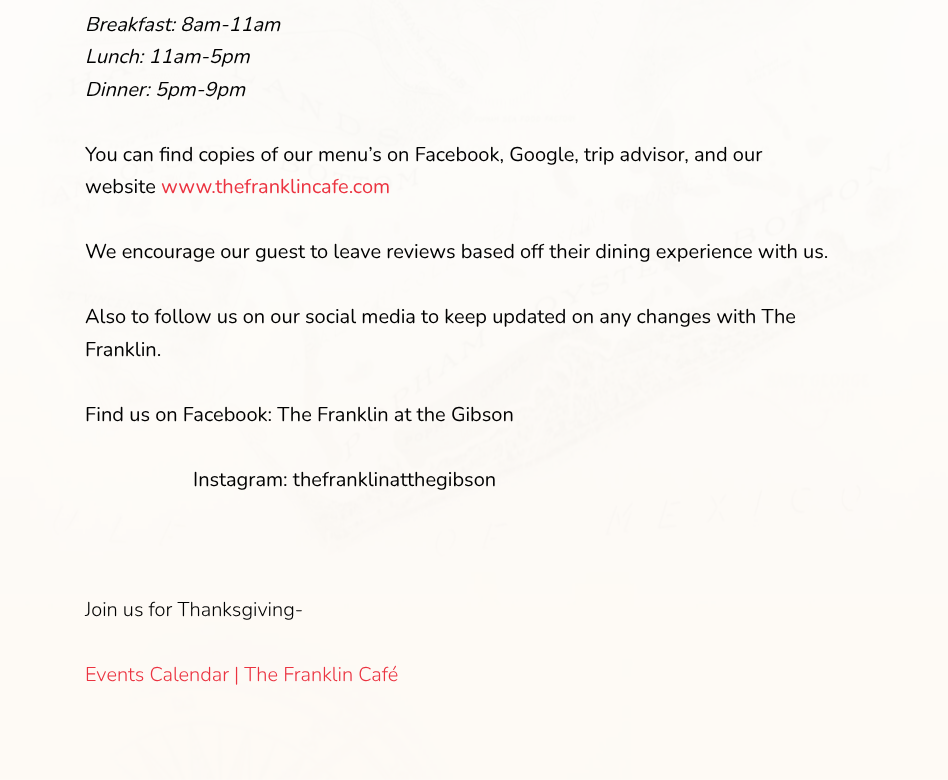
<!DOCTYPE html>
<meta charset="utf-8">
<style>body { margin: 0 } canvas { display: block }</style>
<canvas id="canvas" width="948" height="780"></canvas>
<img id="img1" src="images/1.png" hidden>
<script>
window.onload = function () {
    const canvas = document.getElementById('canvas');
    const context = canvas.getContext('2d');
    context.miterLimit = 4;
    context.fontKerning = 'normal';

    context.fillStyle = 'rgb(255, 255, 255)';
    context.fillRect(0, 0, 948, 780);
    context.drawImage(document.getElementById('img1'), 0, 0, 948, 780);
    context.font = 'italic 20px Nunito';
    context.fillStyle = 'rgb(0, 0, 0)';
    context.fillText('Breakfast: 8am-11am', 85, 31);
    context.fillText('Lunch: 11am-5pm', 85, 63);
    context.fillText('Dinner: 5pm-9pm', 85, 96);
    context.font = '20px Nunito';
    context.fillText('You can find copies of our menu’s on Facebook, Google, trip advisor, and our', 85, 161);
    context.fillText('website', 85, 193);
    context.fillStyle = 'rgb(235, 51, 64)';
    context.fillText('www.thefranklincafe.com', 161, 193);
    context.fillStyle = 'rgb(0, 0, 0)';
    context.fillText('We encourage our guest to leave reviews based off their dining experience with us.', 85, 258);
    context.fillText('Also to follow us on our social media to keep updated on any changes with The', 85, 323);
    context.fillText('Franklin.', 85, 356);
    context.fillText('Find us on Facebook: The Franklin at the Gibson', 85, 421);
    context.fillText('Instagram: thefranklinatthegibson', 193, 486);
    context.font = '300 20px Nunito';
    context.fillText('Join us for Thanksgiving-', 85, 616);
    context.fillStyle = 'rgb(235, 51, 64)';
    context.fillText('Events Calendar | The Franklin Café', 85, 681);
};
</script>
